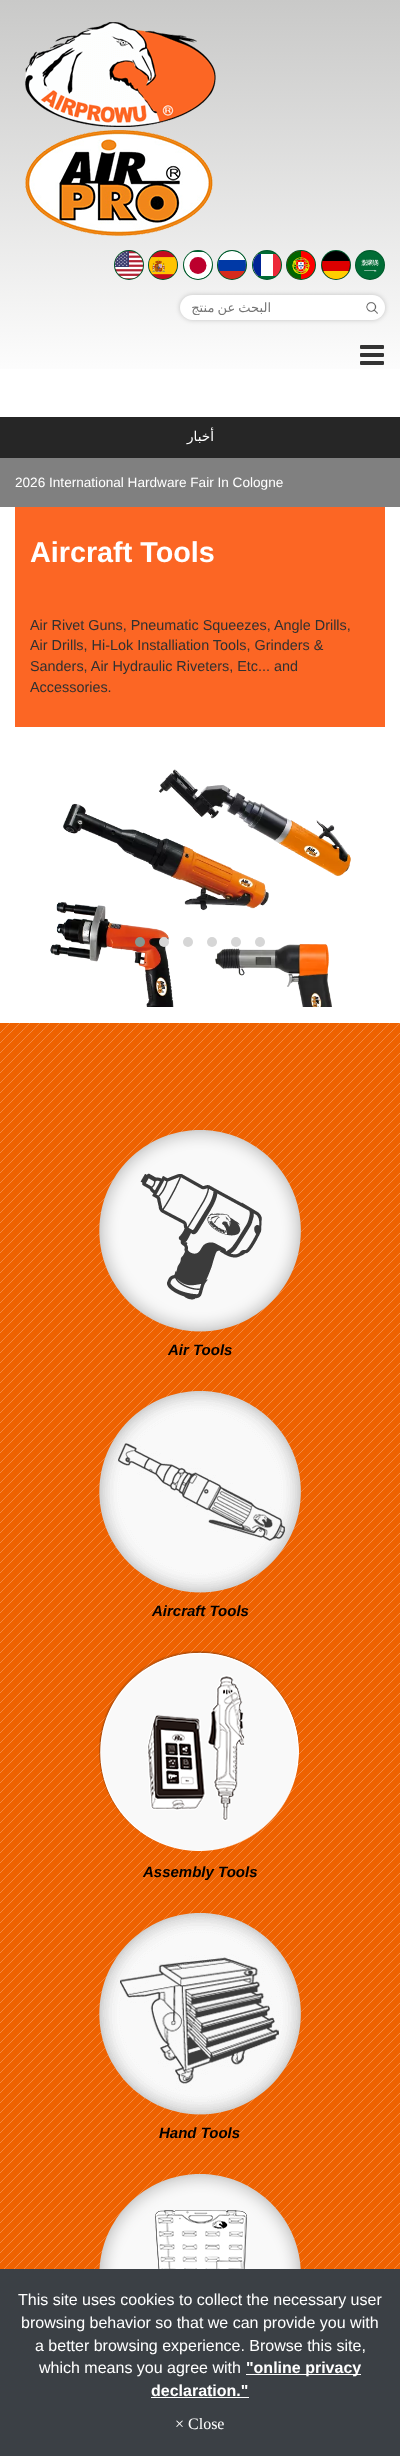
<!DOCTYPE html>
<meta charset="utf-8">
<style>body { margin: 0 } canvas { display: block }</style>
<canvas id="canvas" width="400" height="2456"></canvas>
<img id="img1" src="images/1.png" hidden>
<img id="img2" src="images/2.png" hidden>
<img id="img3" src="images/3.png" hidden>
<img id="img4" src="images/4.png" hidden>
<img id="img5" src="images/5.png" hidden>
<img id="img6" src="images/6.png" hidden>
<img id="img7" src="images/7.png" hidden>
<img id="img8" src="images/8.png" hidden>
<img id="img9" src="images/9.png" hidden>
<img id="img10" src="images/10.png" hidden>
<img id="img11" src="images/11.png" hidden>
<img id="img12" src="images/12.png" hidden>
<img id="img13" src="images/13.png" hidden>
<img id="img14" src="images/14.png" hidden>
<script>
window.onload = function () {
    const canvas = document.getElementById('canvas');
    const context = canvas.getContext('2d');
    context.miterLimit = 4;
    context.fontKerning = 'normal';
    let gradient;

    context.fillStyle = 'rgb(255, 255, 255)';
    context.fillRect(0, 0, 400, 2456);
    gradient = context.createLinearGradient(200, 0, 200, 387);
    gradient.addColorStop(0, 'rgb(201, 201, 200)');
    gradient.addColorStop(1, 'rgb(255, 255, 255)');
    context.fillStyle = gradient;
    context.fillRect(0, 0, 400, 369);
    context.drawImage(document.getElementById('img1'), 25, 22, 191, 214);
    context.fillStyle = 'rgb(0, 108, 53)';
    context.beginPath();
    context.arc(129, 265, 15, 0, 2 * Math.PI);
    context.fill();
    context.beginPath();
    context.arc(129, 265, 14.5, 0, 2 * Math.PI);
    context.strokeStyle = 'rgba(0, 0, 0, 0.2)';
    context.stroke();
    context.drawImage(document.getElementById('img2'), 115, 251, 28, 28);
    context.beginPath();
    context.arc(163, 265, 15, 0, 2 * Math.PI);
    context.fill();
    context.beginPath();
    context.arc(163, 265, 14.5, 0, 2 * Math.PI);
    context.stroke();
    context.drawImage(document.getElementById('img3'), 149, 251, 28, 28);
    context.beginPath();
    context.arc(198, 265, 15, 0, 2 * Math.PI);
    context.fill();
    context.beginPath();
    context.arc(198, 265, 14.5, 0, 2 * Math.PI);
    context.stroke();
    context.save();
    context.beginPath();
    context.roundRect(184, 251, 28, 28, 14);
    context.clip();
    context.fillStyle = 'rgb(255, 255, 255)';
    context.beginPath();
    context.roundRect(184, 252, 28, 27, [0, 0, 14, 14]);
    context.fill();
    context.restore();
    context.fillStyle = 'rgb(188, 0, 45)';
    context.beginPath();
    context.arc(198, 265.5, 8.5, 0, 2 * Math.PI);
    context.fill();
    context.fillStyle = 'rgb(0, 108, 53)';
    context.beginPath();
    context.arc(232, 265, 15, 0, 2 * Math.PI);
    context.fill();
    context.beginPath();
    context.arc(232, 265, 14.5, 0, 2 * Math.PI);
    context.stroke();
    context.save();
    context.beginPath();
    context.roundRect(218, 251, 28, 28, 14);
    context.clip();
    context.fillStyle = 'rgb(255, 255, 255)';
    context.beginPath();
    context.roundRect(218, 251, 28, 15, [14, 14, 0, 0]);
    context.fill();
    context.fillStyle = 'rgb(213, 43, 30)';
    context.fillRect(218, 266, 28, 13);
    context.fillStyle = 'rgb(0, 57, 166)';
    context.fillRect(218, 260, 28, 11);
    context.restore();
    context.beginPath();
    context.arc(267, 265, 15, 0, 2 * Math.PI);
    context.fill();
    context.beginPath();
    context.arc(267, 265, 14.5, 0, 2 * Math.PI);
    context.stroke();
    context.save();
    context.beginPath();
    context.roundRect(253, 251, 28, 28, 14);
    context.clip();
    context.fillStyle = 'rgb(237, 41, 57)';
    context.fillRect(253, 254, 28, 22);
    context.fillStyle = 'rgb(255, 255, 255)';
    context.fillRect(253, 254, 20, 22);
    context.fillStyle = 'rgb(0, 35, 149)';
    context.fillRect(253, 254, 8, 22);
    context.restore();
    context.beginPath();
    context.arc(301, 265, 15, 0, 2 * Math.PI);
    context.fill();
    context.beginPath();
    context.arc(301, 265, 14.5, 0, 2 * Math.PI);
    context.stroke();
    context.drawImage(document.getElementById('img4'), 287, 251, 28, 28);
    context.beginPath();
    context.arc(336, 265, 15, 0, 2 * Math.PI);
    context.fill();
    context.beginPath();
    context.arc(336, 265, 14.5, 0, 2 * Math.PI);
    context.stroke();
    context.fillStyle = 'rgb(0, 0, 0)';
    context.beginPath();
    context.arc(336, 265, 14, 0, 2 * Math.PI);
    context.fill();
    context.save();
    context.beginPath();
    context.roundRect(322, 251, 28, 28, 14);
    context.clip();
    context.fillStyle = 'rgb(221, 0, 0)';
    context.beginPath();
    context.roundRect(322, 261, 28, 18, [0, 0, 14, 14]);
    context.fill();
    context.fillStyle = 'rgb(255, 206, 0)';
    context.fillRect(322, 271, 28, 8);
    context.restore();
    context.fillStyle = 'rgb(0, 108, 53)';
    context.beginPath();
    context.arc(370, 265, 15, 0, 2 * Math.PI);
    context.fill();
    context.beginPath();
    context.arc(370, 265, 14.5, 0, 2 * Math.PI);
    context.stroke();
    context.drawImage(document.getElementById('img5'), 356, 255, 28, 21);
    context.fillStyle = 'rgba(0, 0, 0, 0.2)';
    context.filter = 'blur(2.5px)';
    context.beginPath();
    context.roundRect(180, 295, 205, 25, 12.5);
    context.fill();
    context.filter = 'none';
    context.fillStyle = 'rgb(255, 255, 255)';
    context.beginPath();
    context.roundRect(180, 295, 205, 25, 12.5);
    context.fill();
    context.drawImage(document.getElementById('img6'), 366, 302, 12, 12);
    context.drawImage(document.getElementById('img7'), 360, 345, 24, 20);
    context.fillStyle = 'rgb(128, 128, 128)';
    context.fillRect(0, 458, 400, 49);
    context.fillStyle = 'rgb(38, 38, 38)';
    context.fillRect(0, 417, 400, 41);
    context.fillStyle = 'rgb(252, 102, 36)';
    context.fillRect(15, 507, 370, 220);
    context.drawImage(document.getElementById('img8'), 50, 769, 301, 238);
    context.fillStyle = 'rgb(134, 151, 145)';
    context.beginPath();
    context.arc(140, 942, 5, 0, 2 * Math.PI);
    context.fill();
    context.fillStyle = 'rgb(214, 214, 214)';
    context.beginPath();
    context.arc(164, 942, 5, 0, 2 * Math.PI);
    context.fill();
    context.beginPath();
    context.arc(188, 942, 5, 0, 2 * Math.PI);
    context.fill();
    context.beginPath();
    context.arc(212, 942, 5, 0, 2 * Math.PI);
    context.fill();
    context.beginPath();
    context.arc(236, 942, 5, 0, 2 * Math.PI);
    context.fill();
    context.beginPath();
    context.arc(260, 942, 5, 0, 2 * Math.PI);
    context.fill();
    context.drawImage(document.getElementById('img9'), 0, 1023, 400, 1246);
    context.drawImage(document.getElementById('img10'), 99, 1130, 202, 202);
    context.drawImage(document.getElementById('img11'), 99, 1391, 202, 202);
    context.drawImage(document.getElementById('img12'), 99, 1651, 200, 200);
    context.drawImage(document.getElementById('img13'), 99, 1913, 202, 202);
    context.drawImage(document.getElementById('img14'), 99, 2174, 202, 95);
    context.fillStyle = 'rgb(59, 64, 69)';
    context.fillRect(0, 2269, 400, 187);
    context.fillStyle = 'rgb(255, 255, 255)';
    context.fillRect(246, 2374, 115, 1);
    context.fillRect(151, 2397, 98, 1);
    context.save();
    context.beginPath();
    context.rect(190, 300, 168, 15);
    context.clip();
    context.wordSpacing = '-1px';
    context.direction = 'rtl';
    context.font = '13px DejaVu Sans';
    context.fillStyle = 'rgb(117, 117, 117)';
    context.fillText('البحث عن منتج', 271, 312);
    context.restore();
    context.direction = 'rtl';
    context.font = '13.6px DejaVu Sans';
    context.fillText('أخبار', 214, 441);
    context.direction = 'ltr';
    context.font = '13.6px Liberation Sans';
    context.fillText('2026 International Hardware Fair In Cologne', 15, 487);
    context.font = 'bold 28.75px Liberation Sans';
    context.fillText('Aircraft Tools', 30, 562);
    context.font = '14.4px Liberation Sans';
    context.fillStyle = 'rgb(49, 49, 49)';
    context.fillText('Air Rivet Guns, Pneumatic Squeezes, Angle Drills,', 30, 630);
    context.fillText('Air Drills, Hi-Lok Installiation Tools, Grinders &', 30, 650);
    context.fillText('Sanders, Air Hydraulic Riveters, Etc... and', 30, 671);
    context.fillText('Accessories.', 30, 692);
    context.font = 'italic bold 15px Liberation Sans';
    context.fillStyle = 'rgb(0, 0, 0)';
    context.fillText('Air Tools', 168, 1355);
    context.fillText('Aircraft Tools', 152, 1616);
    context.fillText('Assembly Tools', 143, 1877);
    context.fillText('Hand Tools', 159, 2138);
    context.font = '16px Liberation Sans';
    context.fillStyle = 'rgb(255, 255, 255)';
    context.fillText('This site uses cookies to collect the necessary user', 18, 2305);
    context.fillText('browsing behavior so that we can provide you with', 21, 2328);
    context.fillText('a better browsing experience. Browse this site,', 35, 2351);
    context.fillText('which means you agree with', 39, 2373);
    context.font = 'bold 16px Liberation Sans';
    context.fillText('"online privacy', 246, 2373);
    context.fillText('declaration."', 151, 2396);
    context.font = '16px Liberation Serif';
    context.fillText('× Close', 175, 2429);
};
</script>
